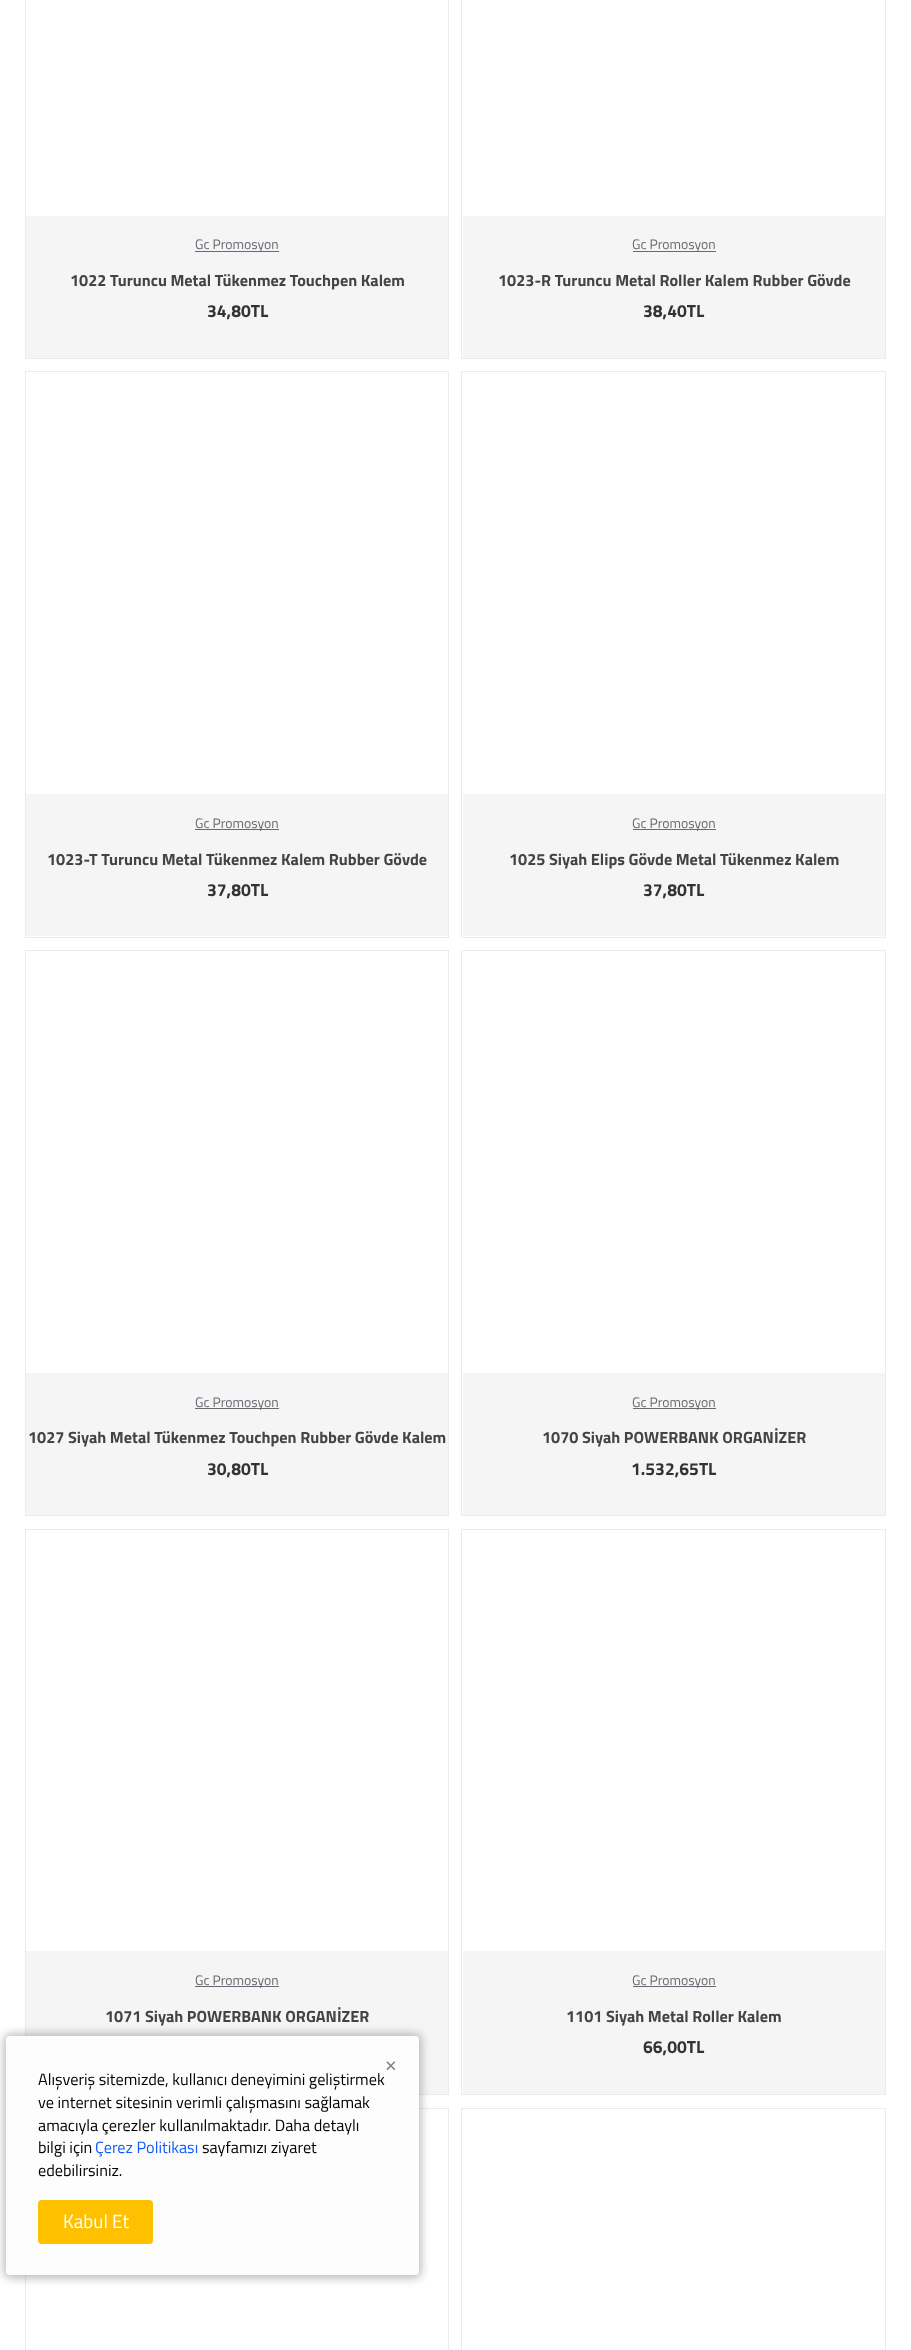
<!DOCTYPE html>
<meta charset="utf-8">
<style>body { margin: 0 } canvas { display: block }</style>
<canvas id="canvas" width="911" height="2350"></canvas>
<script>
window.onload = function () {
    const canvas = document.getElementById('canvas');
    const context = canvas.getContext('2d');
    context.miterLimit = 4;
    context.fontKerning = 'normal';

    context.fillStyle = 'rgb(255, 255, 255)';
    context.fillRect(0, 0, 911, 2350);
    context.strokeStyle = 'rgb(235, 235, 235)';
    context.strokeRect(25.5, -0.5, 423, 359);
    context.fillStyle = 'rgb(245, 245, 245)';
    context.fillRect(26, 216, 422, 142);
    context.fillStyle = 'rgb(105, 105, 115)';
    context.fillRect(195, 251, 84, 1);
    context.strokeRect(461.5, -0.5, 424, 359);
    context.fillStyle = 'rgb(245, 245, 245)';
    context.fillRect(463, 216, 422, 142);
    context.fillStyle = 'rgb(105, 105, 115)';
    context.fillRect(633, 251, 83, 1);
    context.strokeRect(25.5, 371.5, 423, 566);
    context.fillStyle = 'rgb(245, 245, 245)';
    context.fillRect(26, 794, 422, 142);
    context.fillStyle = 'rgb(105, 105, 115)';
    context.fillRect(195, 829, 84, 1);
    context.strokeRect(461.5, 371.5, 424, 566);
    context.fillStyle = 'rgb(245, 245, 245)';
    context.fillRect(463, 794, 422, 142);
    context.fillStyle = 'rgb(105, 105, 115)';
    context.fillRect(633, 829, 83, 1);
    context.strokeRect(25.5, 950.5, 423, 565);
    context.fillStyle = 'rgb(245, 245, 245)';
    context.fillRect(26, 1373, 422, 142);
    context.fillStyle = 'rgb(105, 105, 115)';
    context.fillRect(195, 1408, 84, 1);
    context.strokeRect(461.5, 950.5, 424, 565);
    context.fillStyle = 'rgb(245, 245, 245)';
    context.fillRect(463, 1373, 422, 142);
    context.fillStyle = 'rgb(105, 105, 115)';
    context.fillRect(633, 1408, 83, 1);
    context.strokeRect(25.5, 1529.5, 423, 565);
    context.fillStyle = 'rgb(245, 245, 245)';
    context.fillRect(26, 1951, 422, 143);
    context.fillStyle = 'rgb(105, 105, 115)';
    context.fillRect(195, 1986, 84, 1);
    context.strokeRect(461.5, 1529.5, 424, 565);
    context.fillStyle = 'rgb(245, 245, 245)';
    context.fillRect(463, 1951, 422, 143);
    context.fillStyle = 'rgb(105, 105, 115)';
    context.fillRect(633, 1986, 83, 1);
    context.strokeRect(25.5, 2108.5, 423, 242);
    context.strokeRect(461.5, 2108.5, 424, 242);
    context.fillStyle = 'rgba(0, 0, 0, 0.28)';
    context.filter = 'blur(5px)';
    context.beginPath();
    context.roundRect(4, 2034, 417, 244, 6);
    context.fill();
    context.filter = 'none';
    context.fillStyle = 'rgb(253, 253, 253)';
    context.beginPath();
    context.roundRect(6, 2036, 413, 239, 4);
    context.fill();
    context.fillStyle = 'rgb(255, 192, 0)';
    context.beginPath();
    context.roundRect(38, 2200, 115, 44, 4);
    context.fill();
    context.font = '13.75px Titillium Web';
    context.fillStyle = 'rgb(105, 105, 115)';
    context.fillText('Gc Promosyon', 195, 249);
    context.font = 'bold 16.25px Titillium Web';
    context.fillStyle = 'rgb(68, 68, 68)';
    context.fillText('1022 Turuncu Metal Tükenmez Touchpen Kalem', 70, 286);
    context.font = 'bold 17.5px Titillium Web';
    context.fillStyle = 'rgb(51, 51, 51)';
    context.fillText('34,80TL', 207, 317);
    context.font = '13.75px Titillium Web';
    context.fillStyle = 'rgb(105, 105, 115)';
    context.fillText('Gc Promosyon', 632, 249);
    context.font = 'bold 16.25px Titillium Web';
    context.fillStyle = 'rgb(68, 68, 68)';
    context.fillText('1023-R Turuncu Metal Roller Kalem Rubber Gövde', 498, 286);
    context.font = 'bold 17.5px Titillium Web';
    context.fillStyle = 'rgb(51, 51, 51)';
    context.fillText('38,40TL', 643, 317);
    context.font = '13.75px Titillium Web';
    context.fillStyle = 'rgb(105, 105, 115)';
    context.fillText('Gc Promosyon', 195, 828);
    context.font = 'bold 16.25px Titillium Web';
    context.fillStyle = 'rgb(68, 68, 68)';
    context.fillText('1023-T Turuncu Metal Tükenmez Kalem Rubber Gövde', 47, 865);
    context.font = 'bold 17.5px Titillium Web';
    context.fillStyle = 'rgb(51, 51, 51)';
    context.fillText('37,80TL', 207, 896);
    context.font = '13.75px Titillium Web';
    context.fillStyle = 'rgb(105, 105, 115)';
    context.fillText('Gc Promosyon', 632, 828);
    context.font = 'bold 16.25px Titillium Web';
    context.fillStyle = 'rgb(68, 68, 68)';
    context.fillText('1025 Siyah Elips Gövde Metal Tükenmez Kalem', 509, 865);
    context.font = 'bold 17.5px Titillium Web';
    context.fillStyle = 'rgb(51, 51, 51)';
    context.fillText('37,80TL', 643, 896);
    context.font = '13.75px Titillium Web';
    context.fillStyle = 'rgb(105, 105, 115)';
    context.fillText('Gc Promosyon', 195, 1407);
    context.font = 'bold 16.25px Titillium Web';
    context.fillStyle = 'rgb(68, 68, 68)';
    context.fillText('1027 Siyah Metal Tükenmez Touchpen Rubber Gövde Kalem', 28, 1443);
    context.font = 'bold 17.5px Titillium Web';
    context.fillStyle = 'rgb(51, 51, 51)';
    context.fillText('30,80TL', 207, 1475);
    context.font = '13.75px Titillium Web';
    context.fillStyle = 'rgb(105, 105, 115)';
    context.fillText('Gc Promosyon', 632, 1407);
    context.font = 'bold 16.25px Titillium Web';
    context.fillStyle = 'rgb(68, 68, 68)';
    context.fillText('1070 Siyah POWERBANK ORGANİZER', 542, 1443);
    context.font = 'bold 17.5px Titillium Web';
    context.fillStyle = 'rgb(51, 51, 51)';
    context.fillText('1.532,65TL', 631, 1475);
    context.font = '13.75px Titillium Web';
    context.fillStyle = 'rgb(105, 105, 115)';
    context.fillText('Gc Promosyon', 195, 1985);
    context.font = 'bold 16.25px Titillium Web';
    context.fillStyle = 'rgb(68, 68, 68)';
    context.fillText('1071 Siyah POWERBANK ORGANİZER', 105, 2022);
    context.font = '13.75px Titillium Web';
    context.fillStyle = 'rgb(105, 105, 115)';
    context.fillText('Gc Promosyon', 632, 1985);
    context.font = 'bold 16.25px Titillium Web';
    context.fillStyle = 'rgb(68, 68, 68)';
    context.fillText('1101 Siyah Metal Roller Kalem', 566, 2022);
    context.font = 'bold 17.5px Titillium Web';
    context.fillStyle = 'rgb(51, 51, 51)';
    context.fillText('66,00TL', 643, 2053);
    context.font = '21px Titillium Web';
    context.fillStyle = 'rgb(127, 127, 127)';
    context.fillText('×', 385, 2071);
    context.font = '16.25px Titillium Web';
    context.fillStyle = 'rgb(0, 0, 0)';
    context.fillText('Alışveriş sitemizde, kullanıcı deneyimini geliştirmek', 38, 2085);
    context.fillText('ve internet sitesinin verimli çalışmasını sağlamak', 38, 2108);
    context.fillText('amacıyla çerezler kullanılmaktadır. Daha detaylı', 38, 2131);
    context.fillText('bilgi için', 38, 2153);
    context.fillStyle = 'rgb(17, 92, 250)';
    context.fillText('Çerez Politikası', 95, 2153);
    context.fillStyle = 'rgb(0, 0, 0)';
    context.fillText('sayfamızı ziyaret', 202, 2153);
    context.fillText('edebilirsiniz.', 38, 2176);
    context.font = '19px Titillium Web';
    context.fillStyle = 'rgb(255, 255, 255)';
    context.fillText('Kabul Et', 63, 2228);
};
</script>
